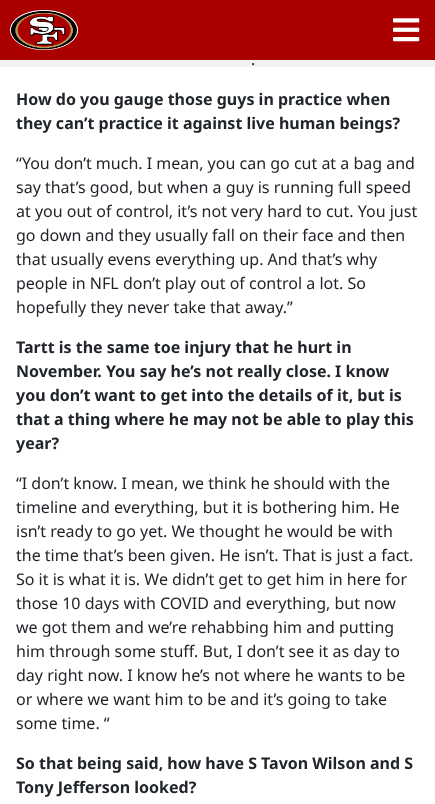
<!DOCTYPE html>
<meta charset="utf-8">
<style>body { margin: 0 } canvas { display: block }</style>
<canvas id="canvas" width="435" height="804"></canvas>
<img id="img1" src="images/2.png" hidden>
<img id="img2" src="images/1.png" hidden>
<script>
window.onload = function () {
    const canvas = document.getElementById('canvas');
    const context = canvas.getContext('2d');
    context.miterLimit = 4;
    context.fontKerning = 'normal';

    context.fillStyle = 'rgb(255, 255, 255)';
    context.fillRect(0, 0, 435, 804);
    context.font = '16px Noto Sans';
    context.fillStyle = 'rgb(33, 37, 41)';
    context.fillText('.', 251, 65);
    context.strokeStyle = 'rgba(0, 0, 0, 0.05)';
    context.lineWidth = 7;
    context.strokeRect(-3.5, -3.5, 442, 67);
    context.fillStyle = 'rgb(170, 0, 0)';
    context.fillRect(0, 0, 435, 60);
    context.drawImage(document.getElementById('img1'), 393, 18, 27, 24);
    context.drawImage(document.getElementById('img2'), 10, 10, 68, 40);
    context.font = 'bold 16px Noto Sans';
    context.fillStyle = 'rgb(33, 37, 41)';
    context.fillText('How do you gauge those guys in practice when', 16, 105);
    context.fillText('they can’t practice it against live human beings?', 16, 129);
    context.font = '16px Noto Sans';
    context.fillText('“You don’t much. I mean, you can go cut at a bag and', 16, 169);
    context.fillText('say that’s good, but when a guy is running full speed', 16, 193);
    context.fillText('at you out of control, it’s not very hard to cut. You just', 16, 217);
    context.fillText('go down and they usually fall on their face and then', 16, 241);
    context.fillText('that usually evens everything up. And that’s why', 16, 265);
    context.fillText('people in NFL don’t play out of control a lot. So', 16, 289);
    context.fillText('hopefully they never take that away.”', 16, 313);
    context.font = 'bold 16px Noto Sans';
    context.fillText('Tartt is the same toe injury that he hurt in', 16, 353);
    context.fillText('November. You say he’s not really close. I know', 16, 377);
    context.fillText('you don’t want to get into the details of it, but is', 16, 401);
    context.fillText('that a thing where he may not be able to play this', 16, 425);
    context.fillText('year?', 16, 449);
    context.font = '16px Noto Sans';
    context.fillText('“I don’t know. I mean, we think he should with the', 16, 489);
    context.fillText('timeline and everything, but it is bothering him. He', 16, 513);
    context.fillText('isn’t ready to go yet. We thought he would be with', 16, 537);
    context.fillText('the time that’s been given. He isn’t. That is just a fact.', 16, 561);
    context.fillText('So it is what it is. We didn’t get to get him in here for', 16, 585);
    context.fillText('those 10 days with COVID and everything, but now', 16, 609);
    context.fillText('we got them and we’re rehabbing him and putting', 16, 633);
    context.fillText('him through some stuff. But, I don’t see it as day to', 16, 657);
    context.fillText('day right now. I know he’s not where he wants to be', 16, 681);
    context.fillText('or where we want him to be and it’s going to take', 16, 705);
    context.fillText('some time. “', 16, 729);
    context.font = 'bold 16px Noto Sans';
    context.fillText('So that being said, how have S Tavon Wilson and S', 16, 769);
    context.fillText('Tony Jefferson looked?', 16, 793);
};
</script>
